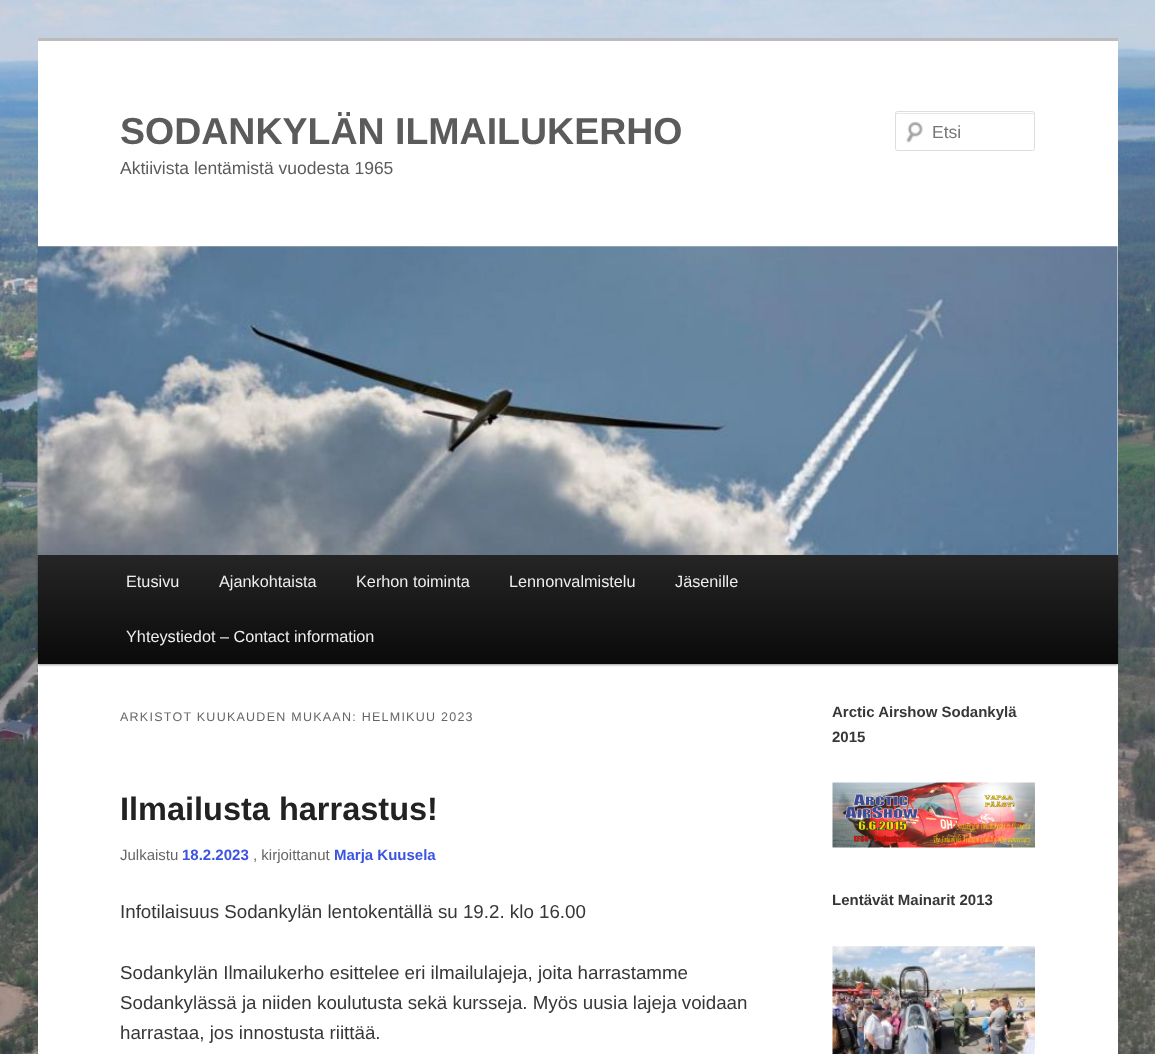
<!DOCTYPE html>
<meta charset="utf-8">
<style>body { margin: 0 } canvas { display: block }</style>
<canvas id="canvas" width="1155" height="1054"></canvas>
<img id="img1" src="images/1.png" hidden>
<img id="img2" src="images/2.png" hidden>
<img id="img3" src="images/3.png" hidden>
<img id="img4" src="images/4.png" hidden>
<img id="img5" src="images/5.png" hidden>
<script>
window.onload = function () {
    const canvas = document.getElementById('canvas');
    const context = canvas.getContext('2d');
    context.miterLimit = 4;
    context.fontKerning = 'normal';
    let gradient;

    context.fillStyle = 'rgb(255, 255, 255)';
    context.fillRect(0, 0, 1155, 1054);
    context.drawImage(document.getElementById('img1'), 0, 0, 1155, 1054);
    context.fillRect(38, 41, 1080, 1013);
    context.fillStyle = 'rgb(187, 187, 187)';
    context.fillRect(38, 38, 1080, 3);
    context.drawImage(document.getElementById('img2'), 906, 121, 17, 22);
    context.fillStyle = 'rgb(230, 230, 230)';
    context.beginPath();
    context.moveTo(898, 114);
    context.lineTo(1032, 114);
    context.bezierCurveTo(1033, 114, 1034, 114, 1034, 115);
    context.bezierCurveTo(1034, 114, 1034, 113, 1033, 113);
    context.lineTo(897, 113);
    context.bezierCurveTo(896, 113, 896, 114, 896, 115);
    context.bezierCurveTo(896, 114, 897, 114, 898, 114);
    context.closePath();
    context.fill();
    context.beginPath();
    context.roundRect(895.5, 111.5, 139, 39, 2);
    context.strokeStyle = 'rgb(221, 221, 221)';
    context.stroke();
    context.fillStyle = 'rgba(0, 0, 0, 0.4)';
    context.filter = 'blur(1px)';
    context.beginPath();
    context.rect(38, 556, 1080, 109);
    context.fill();
    context.filter = 'none';
    context.drawImage(document.getElementById('img3'), 37, 246, 1081, 309);
    gradient = context.createLinearGradient(578, 555, 578, 664);
    gradient.addColorStop(0, 'rgb(37, 37, 37)');
    gradient.addColorStop(1, 'rgb(10, 10, 10)');
    context.fillStyle = gradient;
    context.fillRect(38, 555, 1080, 109);
    context.drawImage(document.getElementById('img4'), 832, 782, 203, 66);
    context.drawImage(document.getElementById('img5'), 832, 946, 203, 108);
    context.font = 'bold 37.5px Liberation Sans';
    context.fillStyle = 'rgb(91, 91, 91)';
    context.fillText('SODANKYLÄN ILMAILUKERHO', 120, 144);
    context.font = '17.5px Liberation Sans';
    context.fillText('Aktiivista lentämistä vuodesta 1965', 120, 174);
    context.fillStyle = 'rgb(117, 117, 117)';
    context.fillText('Etsi', 932, 138);
    context.font = '16.25px Liberation Sans';
    context.fillStyle = 'rgb(238, 238, 238)';
    context.fillText('Etusivu', 126, 587);
    context.fillText('Ajankohtaista', 219, 587);
    context.fillText('Kerhon toiminta', 356, 587);
    context.fillText('Lennonvalmistelu', 509, 587);
    context.fillText('Jäsenille', 675, 587);
    context.fillText('Yhteystiedot – Contact information', 126, 642);
    context.letterSpacing = '1.25px';
    context.font = '12.5px Liberation Sans';
    context.fillStyle = 'rgb(102, 102, 102)';
    context.fillText('ARKISTOT KUUKAUDEN MUKAAN: HELMIKUU 2023', 120, 721);
    context.letterSpacing = '0px';
    context.font = 'bold 32.5px Liberation Sans';
    context.fillStyle = 'rgb(34, 34, 34)';
    context.fillText('Ilmailusta harrastus!', 120, 820);
    context.font = '15px Liberation Sans';
    context.fillStyle = 'rgb(102, 102, 102)';
    context.fillText('Julkaistu', 120, 860);
    context.font = 'bold 15px Liberation Sans';
    context.fillStyle = 'rgb(59, 84, 226)';
    context.fillText('18.2.2023', 182, 860);
    context.font = '15px Liberation Sans';
    context.fillStyle = 'rgb(102, 102, 102)';
    context.fillText(', kirjoittanut', 253, 860);
    context.font = 'bold 15px Liberation Sans';
    context.fillStyle = 'rgb(59, 84, 226)';
    context.fillText('Marja Kuusela', 334, 860);
    context.font = '18.75px Liberation Sans';
    context.fillStyle = 'rgb(55, 55, 55)';
    context.fillText('Infotilaisuus Sodankylän lentokentällä su 19.2. klo 16.00', 120, 918);
    context.fillText('Sodankylän Ilmailukerho esittelee eri ilmailulajeja, joita harrastamme', 120, 979);
    context.fillText('Sodankylässä ja niiden koulutusta sekä kursseja. Myös uusia lajeja voidaan', 120, 1009);
    context.fillText('harrastaa, jos innostusta riittää.', 120, 1039);
    context.font = 'bold 15px Liberation Sans';
    context.fillText('Arctic Airshow Sodankylä', 832, 717);
    context.fillText('2015', 832, 742);
    context.fillText('Lentävät Mainarit 2013', 832, 905);
};
</script>
